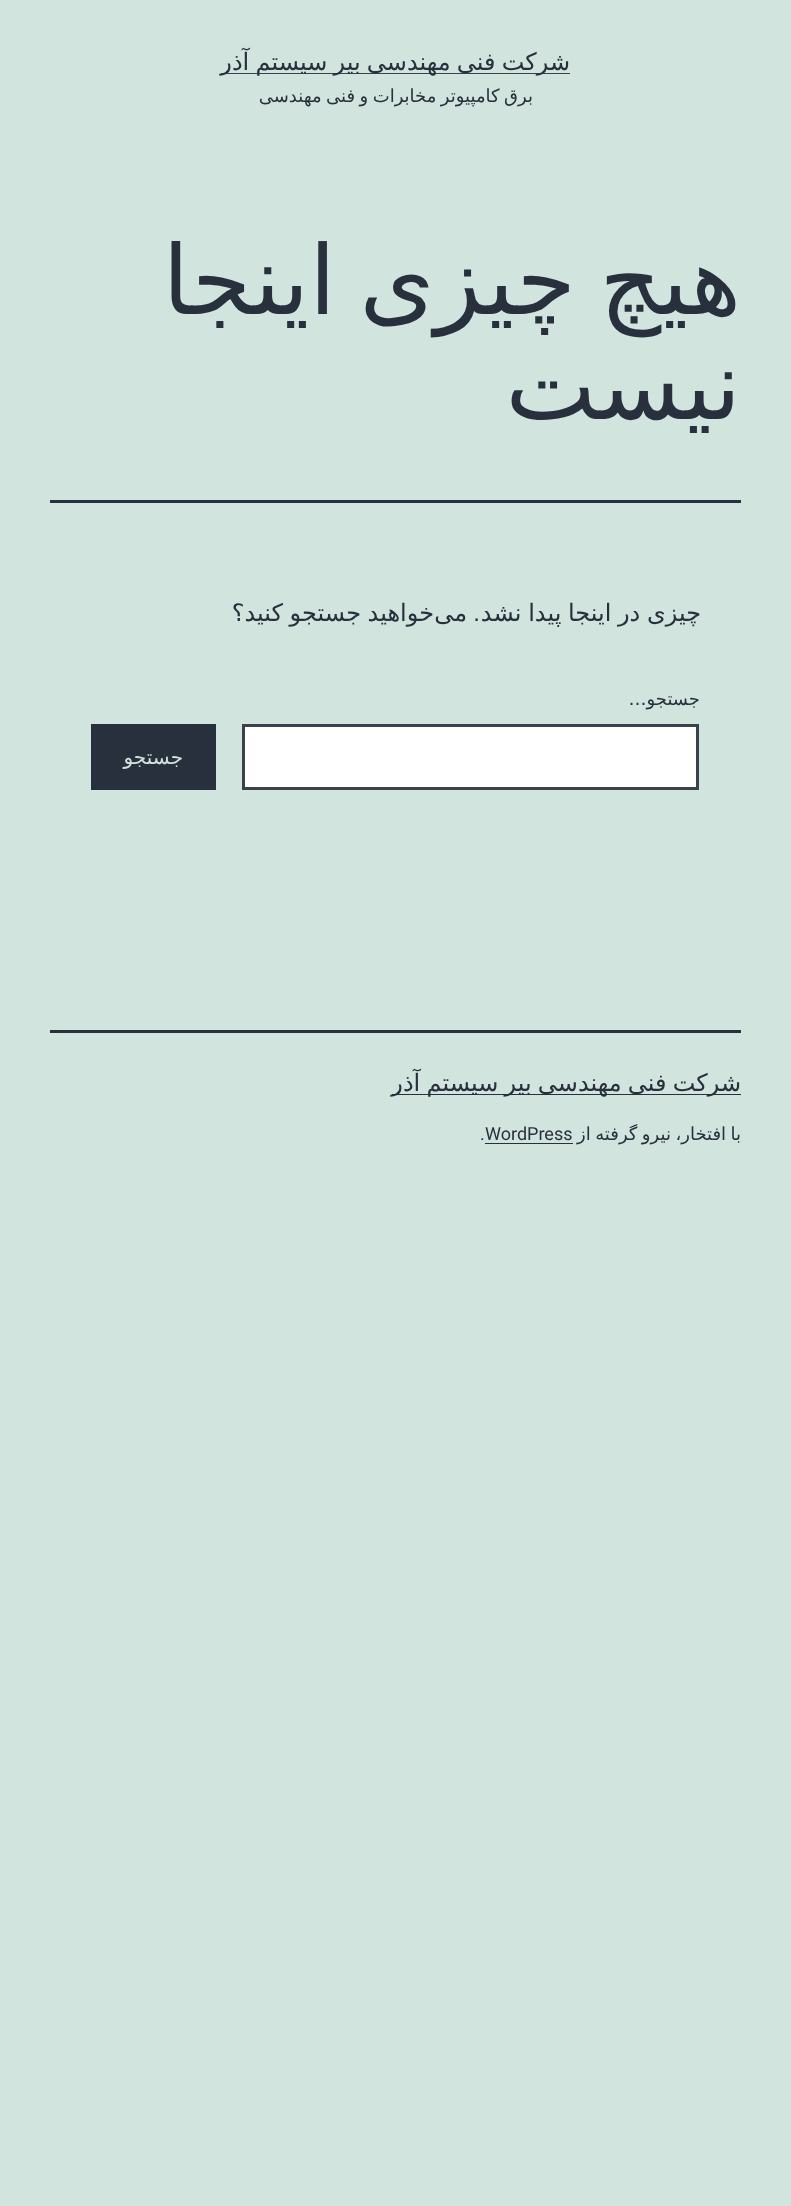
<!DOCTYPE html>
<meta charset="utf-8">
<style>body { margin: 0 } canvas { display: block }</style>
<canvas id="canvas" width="791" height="2206"></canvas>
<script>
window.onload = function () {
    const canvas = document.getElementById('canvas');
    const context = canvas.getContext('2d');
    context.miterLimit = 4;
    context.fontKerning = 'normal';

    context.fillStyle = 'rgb(209, 228, 221)';
    context.fillRect(0, 0, 791, 2206);
    context.fillStyle = 'rgb(57, 65, 77)';
    context.fillRect(221, 73, 349, 1);
    context.fillStyle = 'rgb(40, 48, 61)';
    context.fillRect(50, 500, 691, 3);
    context.fillStyle = 'rgb(255, 255, 255)';
    context.beginPath();
    context.rect(243.5, 725.5, 454, 63);
    context.fill();
    context.strokeStyle = 'rgb(57, 65, 77)';
    context.lineWidth = 3;
    context.stroke();
    context.fillStyle = 'rgb(40, 48, 61)';
    context.fillRect(91, 724, 125, 66);
    context.fillRect(50, 1030, 691, 3);
    context.fillRect(392, 1094, 349, 1);
    context.fillRect(485, 1143, 88, 1);
    context.wordSpacing = '-1.5px';
    context.direction = 'rtl';
    context.font = '24px DejaVu Sans';
    context.fillText('شرکت فنی مهندسی بیر سیستم آذر', 570, 70);
    context.wordSpacing = '-1.25px';
    context.font = '18px DejaVu Sans';
    context.fillText('برق کامپیوتر مخابرات و فنی مهندسی', 533, 102);
    context.wordSpacing = '-7px';
    context.font = '96px DejaVu Sans';
    context.fillText('هیچ چیزی اینجا', 741, 314);
    context.wordSpacing = '0px';
    context.fillText('نیست', 741, 419);
    context.wordSpacing = '-1px';
    context.font = '24px DejaVu Sans';
    context.fillText('چیزی در اینجا پیدا نشد', 701, 621);
    context.wordSpacing = '0px';
    context.font = '24px Liberation Sans';
    context.fillText('.', 480, 621);
    context.font = '24px DejaVu Sans';
    context.fillText('می', 467, 621);
    context.wordSpacing = '-1px';
    context.fillText('خواهید جستجو کنید؟', 434, 621);
    context.wordSpacing = '0px';
    context.font = '18px DejaVu Sans';
    context.fillText('جستجو…', 700, 705);
    context.font = '20px DejaVu Sans';
    context.fillStyle = 'rgb(209, 228, 221)';
    context.fillText('جستجو', 183, 764);
    context.wordSpacing = '-1.5px';
    context.font = '24px DejaVu Sans';
    context.fillStyle = 'rgb(40, 48, 61)';
    context.fillText('شرکت فنی مهندسی بیر سیستم آذر', 741, 1091);
    context.wordSpacing = '-1.25px';
    context.font = '18px DejaVu Sans';
    context.fillText('با افتخار، نیرو گرفته از', 741, 1140);
    context.wordSpacing = '0px';
    context.direction = 'ltr';
    context.font = '18px Roboto';
    context.fillText('WordPress', 485, 1140);
    context.fillText('.', 480, 1140);
};
</script>
